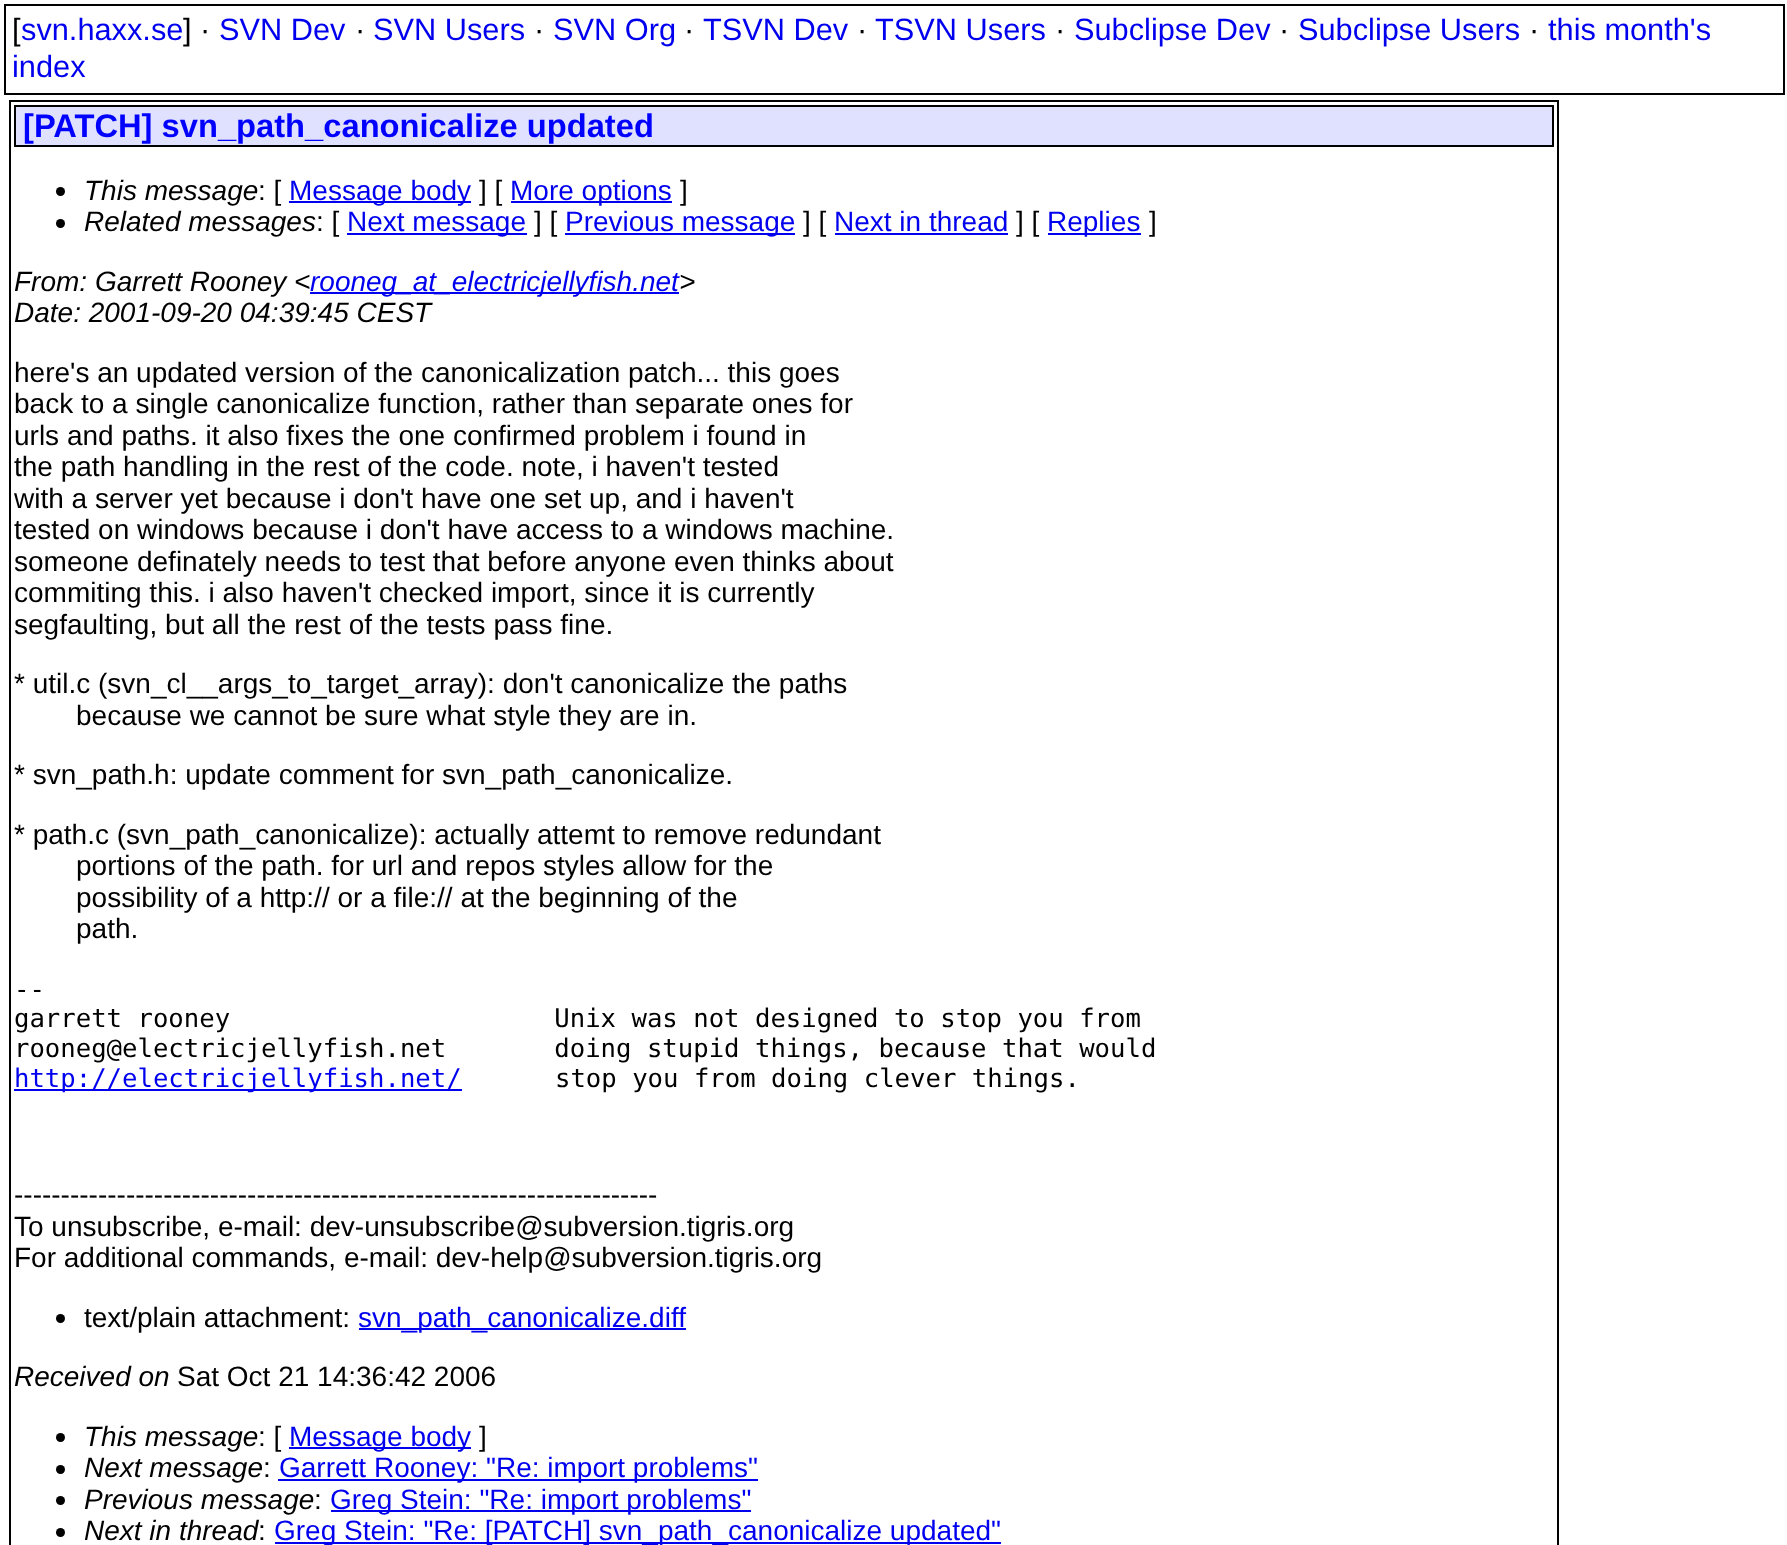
<!DOCTYPE html>
<meta charset="utf-8">
<style>body { margin: 0 } canvas { display: block }</style>
<canvas id="canvas" width="1787" height="1545"></canvas>
<script>
window.onload = function () {
    const canvas = document.getElementById('canvas');
    const context = canvas.getContext('2d');
    context.miterLimit = 4;
    context.fontKerning = 'normal';

    context.fillStyle = 'rgb(255, 255, 255)';
    context.fillRect(0, 0, 1787, 1545);
    context.strokeStyle = 'rgb(0, 0, 0)';
    context.lineWidth = 2;
    context.strokeRect(5, 5, 1779, 89);
    context.strokeRect(10, 101, 1548, 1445);
    context.fillStyle = 'rgb(224, 224, 255)';
    context.beginPath();
    context.rect(15, 106, 1538, 40);
    context.fill();
    context.stroke();
    context.fillStyle = 'rgb(0, 0, 0)';
    context.beginPath();
    context.arc(60.5, 191.5, 4.5, 0, 2 * Math.PI);
    context.fill();
    context.fillStyle = 'rgb(0, 0, 238)';
    context.fillRect(289, 201, 182, 2);
    context.fillRect(511, 201, 161, 2);
    context.fillStyle = 'rgb(0, 0, 0)';
    context.beginPath();
    context.arc(60.5, 223.5, 4.5, 0, 2 * Math.PI);
    context.fill();
    context.fillStyle = 'rgb(0, 0, 238)';
    context.fillRect(347, 233, 180, 2);
    context.fillRect(565, 233, 230, 2);
    context.fillRect(835, 233, 173, 2);
    context.fillRect(1048, 233, 93, 2);
    context.fillRect(310, 292, 369, 2);
    context.fillRect(14, 1089, 448, 2);
    context.fillStyle = 'rgb(0, 0, 0)';
    context.beginPath();
    context.arc(60.5, 1318.5, 4.5, 0, 2 * Math.PI);
    context.fill();
    context.fillStyle = 'rgb(0, 0, 238)';
    context.fillRect(359, 1328, 327, 2);
    context.fillStyle = 'rgb(0, 0, 0)';
    context.beginPath();
    context.arc(60.5, 1437.5, 4.5, 0, 2 * Math.PI);
    context.fill();
    context.fillStyle = 'rgb(0, 0, 238)';
    context.fillRect(289, 1447, 182, 2);
    context.fillStyle = 'rgb(0, 0, 0)';
    context.beginPath();
    context.arc(60.5, 1469.5, 4.5, 0, 2 * Math.PI);
    context.fill();
    context.fillStyle = 'rgb(0, 0, 238)';
    context.fillRect(278, 1479, 480, 2);
    context.fillStyle = 'rgb(0, 0, 0)';
    context.beginPath();
    context.arc(60.5, 1500.5, 4.5, 0, 2 * Math.PI);
    context.fill();
    context.fillStyle = 'rgb(0, 0, 238)';
    context.fillRect(331, 1510, 420, 2);
    context.fillStyle = 'rgb(0, 0, 0)';
    context.beginPath();
    context.arc(60.5, 1532.5, 4.5, 0, 2 * Math.PI);
    context.fill();
    context.fillStyle = 'rgb(0, 0, 238)';
    context.fillRect(275, 1542, 726, 2);
    context.font = '30.75px Liberation Sans';
    context.fillStyle = 'rgb(0, 0, 0)';
    context.fillText('[', 12, 40);
    context.fillStyle = 'rgb(0, 0, 238)';
    context.fillText('svn.haxx.se', 21, 40);
    context.fillStyle = 'rgb(0, 0, 0)';
    context.fillText('] ·', 183, 40);
    context.fillStyle = 'rgb(0, 0, 238)';
    context.fillText('SVN Dev', 219, 40);
    context.fillStyle = 'rgb(0, 0, 0)';
    context.fillText('·', 355, 40);
    context.fillStyle = 'rgb(0, 0, 238)';
    context.fillText('SVN Users', 373, 40);
    context.fillStyle = 'rgb(0, 0, 0)';
    context.fillText('·', 534, 40);
    context.fillStyle = 'rgb(0, 0, 238)';
    context.fillText('SVN Org', 553, 40);
    context.fillStyle = 'rgb(0, 0, 0)';
    context.fillText('·', 684, 40);
    context.fillStyle = 'rgb(0, 0, 238)';
    context.fillText('TSVN Dev', 703, 40);
    context.fillStyle = 'rgb(0, 0, 0)';
    context.fillText('·', 857, 40);
    context.fillStyle = 'rgb(0, 0, 238)';
    context.fillText('TSVN Users', 875, 40);
    context.fillStyle = 'rgb(0, 0, 0)';
    context.fillText('·', 1055, 40);
    context.fillStyle = 'rgb(0, 0, 238)';
    context.fillText('Subclipse Dev', 1074, 40);
    context.fillStyle = 'rgb(0, 0, 0)';
    context.fillText('·', 1279, 40);
    context.fillStyle = 'rgb(0, 0, 238)';
    context.fillText('Subclipse Users', 1298, 40);
    context.fillStyle = 'rgb(0, 0, 0)';
    context.fillText('·', 1529, 40);
    context.fillStyle = 'rgb(0, 0, 238)';
    context.fillText('this month\'s', 1548, 40);
    context.fillText('index', 12, 77);
    context.font = 'bold 32.7px Liberation Sans';
    context.fillStyle = 'rgb(0, 0, 255)';
    context.fillText('[PATCH] svn_path_canonicalize updated', 23, 137);
    context.font = 'italic 28px Liberation Sans';
    context.fillStyle = 'rgb(0, 0, 0)';
    context.fillText('This message', 84, 200);
    context.font = '28px Liberation Sans';
    context.fillText(': [', 258, 200);
    context.fillStyle = 'rgb(0, 0, 238)';
    context.fillText('Message body', 289, 200);
    context.fillStyle = 'rgb(0, 0, 0)';
    context.fillText('] [', 479, 200);
    context.fillStyle = 'rgb(0, 0, 238)';
    context.fillText('More options', 510, 200);
    context.fillStyle = 'rgb(0, 0, 0)';
    context.fillText(']', 680, 200);
    context.font = 'italic 28px Liberation Sans';
    context.fillText('Related messages', 84, 231);
    context.font = '28px Liberation Sans';
    context.fillText(': [', 316, 231);
    context.fillStyle = 'rgb(0, 0, 238)';
    context.fillText('Next message', 347, 231);
    context.fillStyle = 'rgb(0, 0, 0)';
    context.fillText('] [', 534, 231);
    context.fillStyle = 'rgb(0, 0, 238)';
    context.fillText('Previous message', 565, 231);
    context.fillStyle = 'rgb(0, 0, 0)';
    context.fillText('] [', 803, 231);
    context.fillStyle = 'rgb(0, 0, 238)';
    context.fillText('Next in thread', 834, 231);
    context.fillStyle = 'rgb(0, 0, 0)';
    context.fillText('] [', 1016, 231);
    context.fillStyle = 'rgb(0, 0, 238)';
    context.fillText('Replies', 1047, 231);
    context.fillStyle = 'rgb(0, 0, 0)';
    context.fillText(']', 1149, 231);
    context.font = 'italic 28px Liberation Sans';
    context.fillText('From: Garrett Rooney <', 14, 291);
    context.fillStyle = 'rgb(0, 0, 238)';
    context.fillText('rooneg_at_electricjellyfish.net', 310, 291);
    context.fillStyle = 'rgb(0, 0, 0)';
    context.fillText('>', 679, 291);
    context.fillText('Date: 2001-09-20 04:39:45 CEST', 14, 322);
    context.font = '28px Liberation Sans';
    context.fillText('here\'s an updated version of the canonicalization patch... this goes', 14, 382);
    context.fillText('back to a single canonicalize function, rather than separate ones for', 14, 413);
    context.fillText('urls and paths. it also fixes the one confirmed problem i found in', 14, 445);
    context.fillText('the path handling in the rest of the code. note, i haven\'t tested', 14, 476);
    context.fillText('with a server yet because i don\'t have one set up, and i haven\'t', 14, 508);
    context.fillText('tested on windows because i don\'t have access to a windows machine.', 14, 539);
    context.fillText('someone definately needs to test that before anyone even thinks about', 14, 571);
    context.fillText('commiting this. i also haven\'t checked import, since it is currently', 14, 602);
    context.fillText('segfaulting, but all the rest of the tests pass fine.', 14, 634);
    context.fillText('* util.c (svn_cl__args_to_target_array): don\'t canonicalize the paths', 14, 693);
    context.fillText('because we cannot be sure what style they are in.', 76, 725);
    context.fillText('* svn_path.h: update comment for svn_path_canonicalize.', 14, 784);
    context.fillText('* path.c (svn_path_canonicalize): actually attemt to remove redundant', 14, 844);
    context.fillText('portions of the path. for url and repos styles allow for the', 76, 875);
    context.fillText('possibility of a http:// or a file:// at the beginning of the', 76, 907);
    context.fillText('path.', 76, 938);
    context.font = '25.65px DejaVu Sans Mono';
    context.fillText('--', 14, 998);
    context.fillText('garrett rooney                     Unix was not designed to stop you from', 14, 1027);
    context.fillText('rooneg@electricjellyfish.net       doing stupid things, because that would', 14, 1057);
    context.fillStyle = 'rgb(0, 0, 238)';
    context.fillText('http://electricjellyfish.net/', 14, 1087);
    context.fillStyle = 'rgb(0, 0, 0)';
    context.fillText('stop you from doing clever things.', 555, 1087);
    context.font = '28px Liberation Sans';
    context.fillText('---------------------------------------------------------------------', 14, 1204);
    context.fillText('To unsubscribe, e-mail: dev-unsubscribe@subversion.tigris.org', 14, 1236);
    context.fillText('For additional commands, e-mail: dev-help@subversion.tigris.org', 14, 1267);
    context.fillText('text/plain attachment:', 84, 1327);
    context.fillStyle = 'rgb(0, 0, 238)';
    context.fillText('svn_path_canonicalize.diff', 358, 1327);
    context.font = 'italic 28px Liberation Sans';
    context.fillStyle = 'rgb(0, 0, 0)';
    context.fillText('Received on', 14, 1386);
    context.font = '28px Liberation Sans';
    context.fillText('Sat Oct 21 14:36:42 2006', 177, 1386);
    context.font = 'italic 28px Liberation Sans';
    context.fillText('This message', 84, 1446);
    context.font = '28px Liberation Sans';
    context.fillText(': [', 258, 1446);
    context.fillStyle = 'rgb(0, 0, 238)';
    context.fillText('Message body', 289, 1446);
    context.fillStyle = 'rgb(0, 0, 0)';
    context.fillText(']', 479, 1446);
    context.font = 'italic 28px Liberation Sans';
    context.fillText('Next message', 84, 1477);
    context.font = '28px Liberation Sans';
    context.fillText(':', 263, 1477);
    context.fillStyle = 'rgb(0, 0, 238)';
    context.fillText('Garrett Rooney: "Re: import problems"', 279, 1477);
    context.font = 'italic 28px Liberation Sans';
    context.fillStyle = 'rgb(0, 0, 0)';
    context.fillText('Previous message', 84, 1509);
    context.font = '28px Liberation Sans';
    context.fillText(':', 314, 1509);
    context.fillStyle = 'rgb(0, 0, 238)';
    context.fillText('Greg Stein: "Re: import problems"', 330, 1509);
    context.font = 'italic 28px Liberation Sans';
    context.fillStyle = 'rgb(0, 0, 0)';
    context.fillText('Next in thread', 84, 1540);
    context.font = '28px Liberation Sans';
    context.fillText(':', 258, 1540);
    context.fillStyle = 'rgb(0, 0, 238)';
    context.fillText('Greg Stein: "Re: [PATCH] svn_path_canonicalize updated"', 274, 1540);
};
</script>
